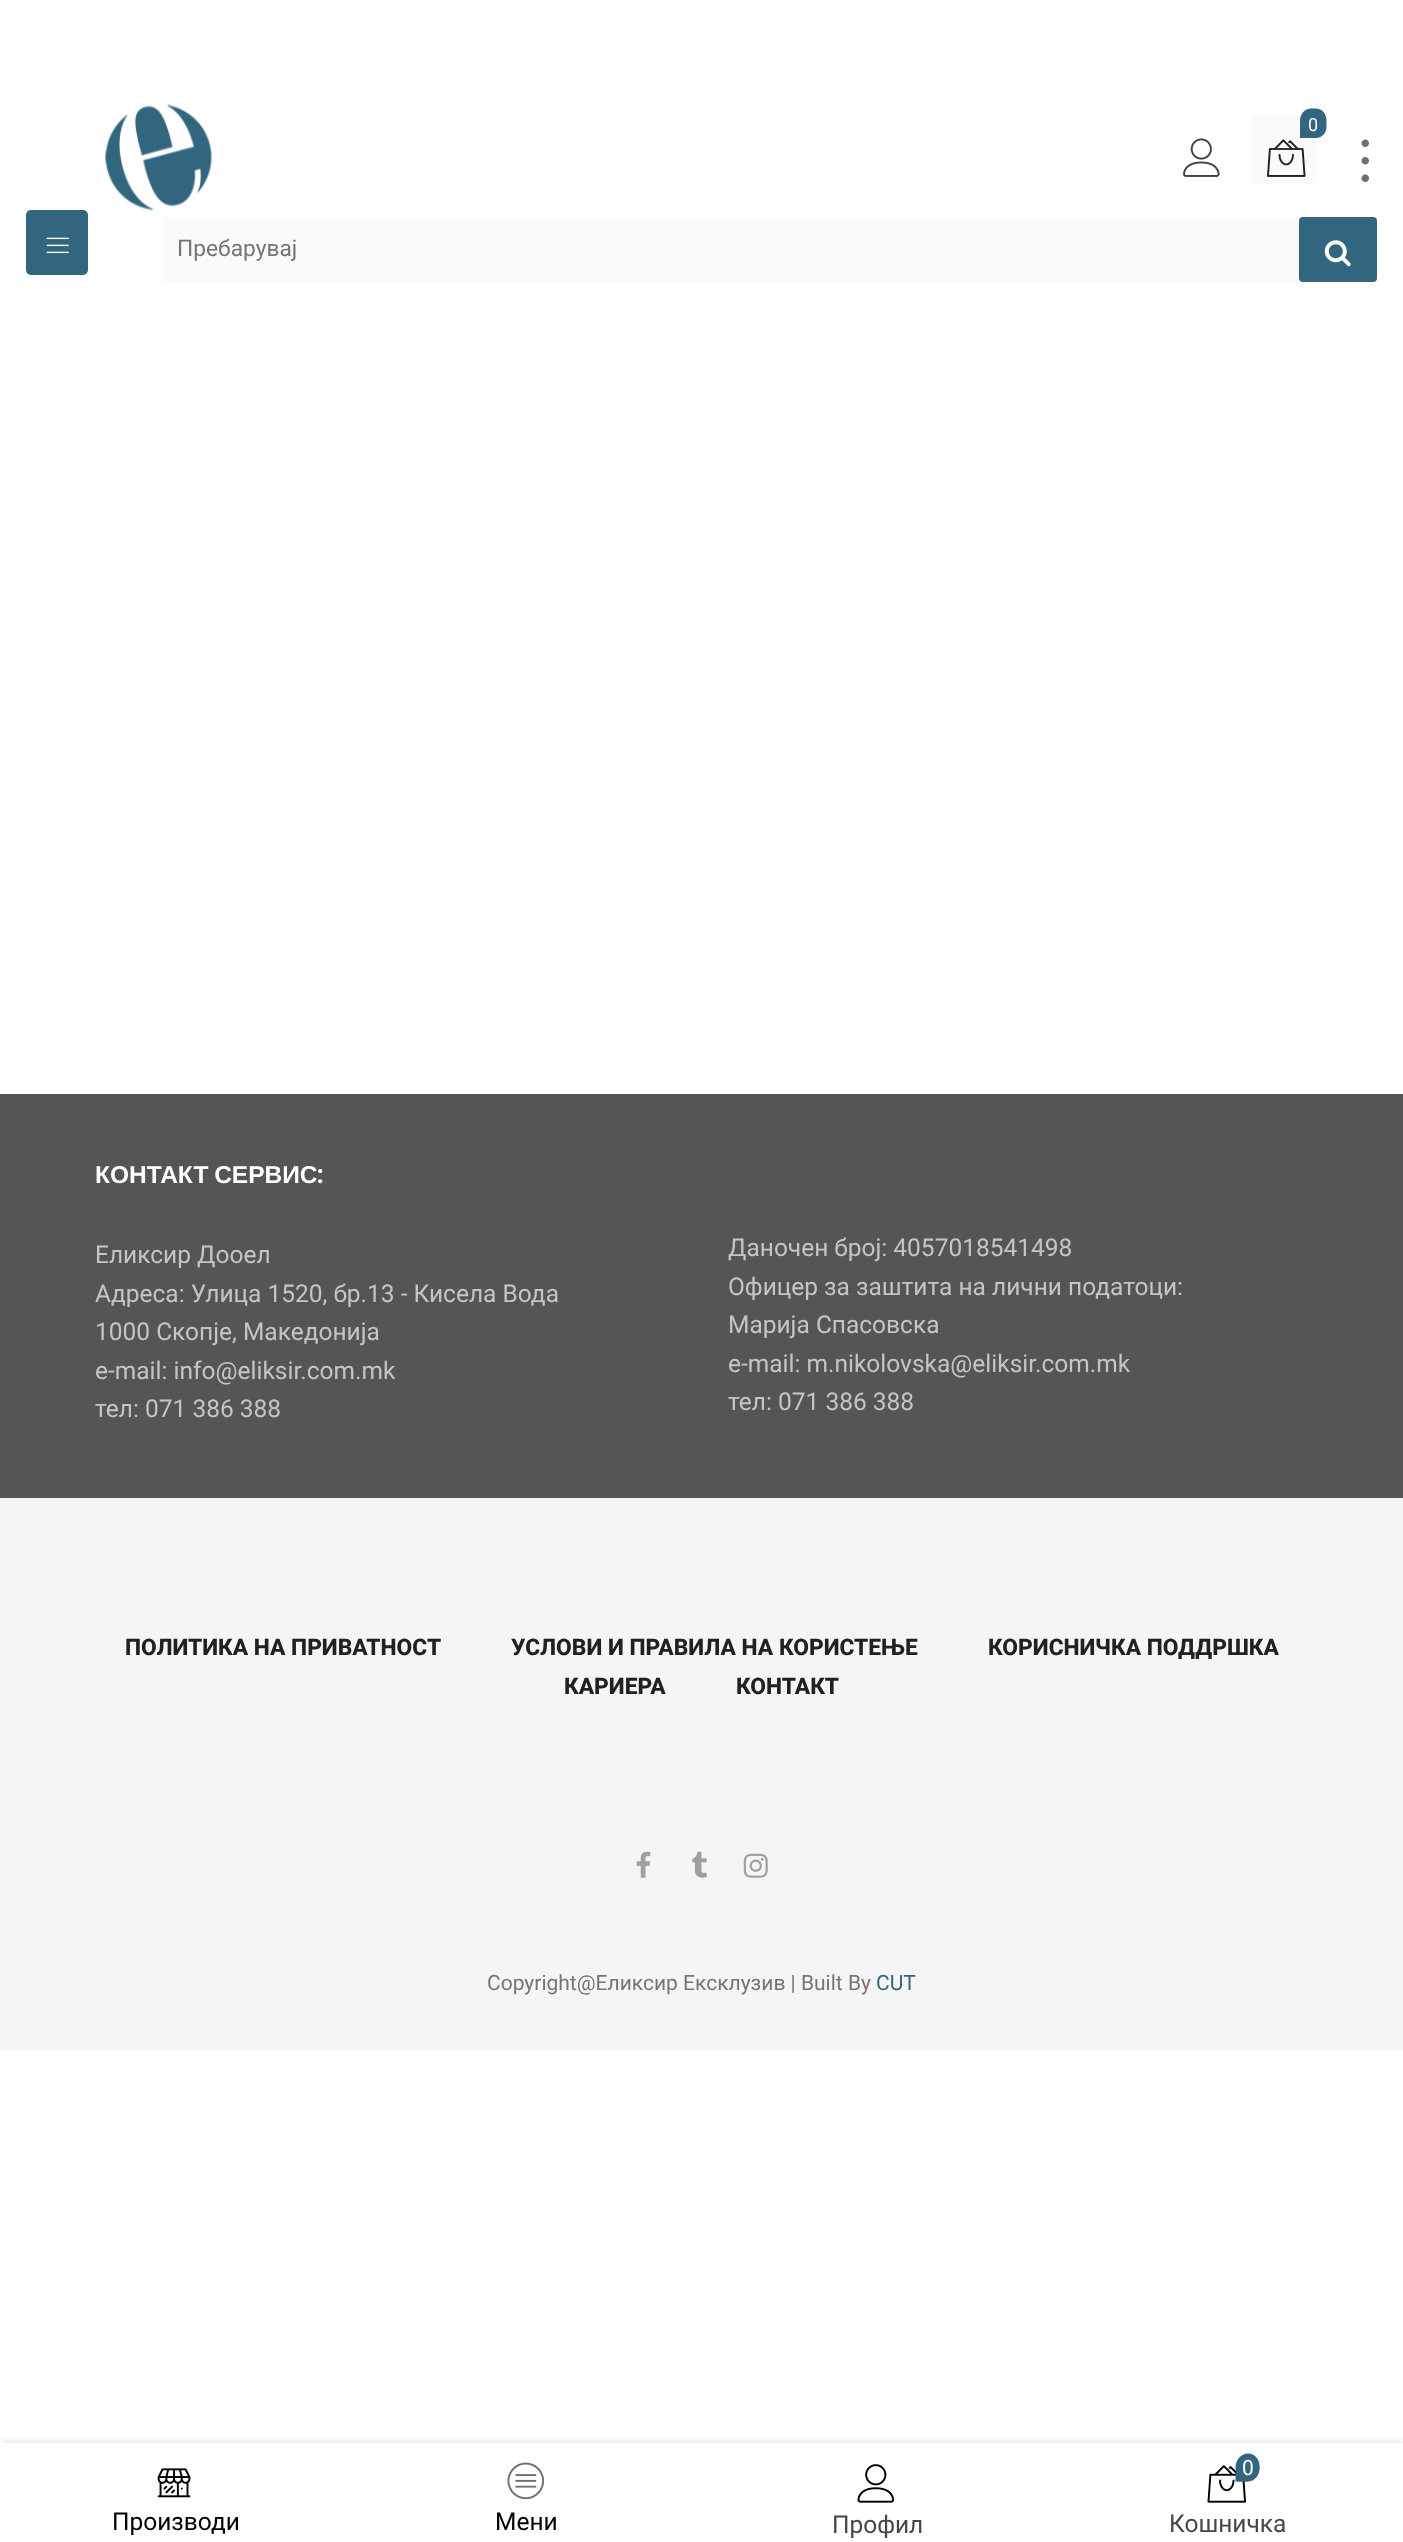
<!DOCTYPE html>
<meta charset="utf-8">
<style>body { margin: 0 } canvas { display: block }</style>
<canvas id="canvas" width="1403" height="2542"></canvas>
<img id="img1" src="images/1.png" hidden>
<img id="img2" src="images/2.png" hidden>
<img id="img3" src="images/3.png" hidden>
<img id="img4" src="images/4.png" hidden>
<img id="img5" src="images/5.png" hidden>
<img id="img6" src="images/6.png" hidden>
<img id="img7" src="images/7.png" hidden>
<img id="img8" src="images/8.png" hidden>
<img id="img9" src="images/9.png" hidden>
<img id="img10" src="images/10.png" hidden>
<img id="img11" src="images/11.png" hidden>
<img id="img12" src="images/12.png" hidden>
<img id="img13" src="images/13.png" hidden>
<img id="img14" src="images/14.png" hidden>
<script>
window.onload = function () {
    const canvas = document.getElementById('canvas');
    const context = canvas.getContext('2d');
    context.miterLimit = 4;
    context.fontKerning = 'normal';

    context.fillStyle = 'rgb(255, 255, 255)';
    context.fillRect(0, 0, 1403, 2542);
    context.drawImage(document.getElementById('img1'), 105, 104, 107, 107);
    context.fillStyle = 'rgb(250, 250, 250)';
    context.beginPath();
    context.roundRect(1251, 116, 65, 68, 4);
    context.fill();
    context.fillStyle = 'rgb(50, 101, 126)';
    context.beginPath();
    context.moveTo(1311, 108.5);
    context.lineTo(1316, 108.5);
    context.bezierCurveTo(1322, 108.5, 1326.5, 114, 1326.5, 120.5);
    context.lineTo(1326.5, 126.5);
    context.bezierCurveTo(1326.5, 133, 1322, 138, 1316, 138);
    context.lineTo(1300, 138);
    context.lineTo(1300, 120.5);
    context.bezierCurveTo(1300, 114, 1305, 108.5, 1311, 108.5);
    context.closePath();
    context.fill();
    context.drawImage(document.getElementById('img2'), 1267, 139, 39, 38);
    context.drawImage(document.getElementById('img3'), 1183, 138, 37, 39);
    context.drawImage(document.getElementById('img4'), 1361, 139, 8, 8);
    context.drawImage(document.getElementById('img5'), 1361, 157, 8, 8);
    context.drawImage(document.getElementById('img4'), 1361, 174, 8, 8);
    context.beginPath();
    context.roundRect(26, 210, 62, 65, 5);
    context.fill();
    context.drawImage(document.getElementById('img6'), 46, 237, 23, 17);
    context.fillStyle = 'rgb(250, 250, 250)';
    context.fillRect(163, 217, 1136, 65);
    context.fillStyle = 'rgb(50, 101, 126)';
    context.beginPath();
    context.roundRect(1299, 217, 78, 65, 4);
    context.fill();
    context.drawImage(document.getElementById('img7'), 1324, 240, 27, 27);
    context.save();
    context.beginPath();
    context.rect(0, 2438, 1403, 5);
    context.clip();
    context.fillStyle = 'rgba(0, 0, 0, 0.08)';
    context.filter = 'blur(3.5px)';
    context.beginPath();
    context.rect(0, 2440, 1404, 99);
    context.fill();
    context.filter = 'none';
    context.restore();
    context.drawImage(document.getElementById('img8'), 157, 2468, 34, 30);
    context.drawImage(document.getElementById('img9'), 507, 2462, 38, 38);
    context.drawImage(document.getElementById('img10'), 857, 2464, 38, 39);
    context.drawImage(document.getElementById('img11'), 1207, 2465, 39, 38);
    context.beginPath();
    context.moveTo(1248, 2453.5);
    context.bezierCurveTo(1261.5, 2453.5, 1264, 2475, 1252.5, 2480.5);
    context.bezierCurveTo(1248.5, 2482.5, 1240, 2481.5, 1235.5, 2481.5);
    context.lineTo(1235.5, 2467.5);
    context.bezierCurveTo(1235.5, 2460, 1241, 2453.5, 1248, 2453.5);
    context.closePath();
    context.fill();
    context.fillStyle = 'rgb(85, 85, 85)';
    context.fillRect(0, 1094, 1403, 404);
    context.fillStyle = 'rgb(245, 245, 245)';
    context.fillRect(0, 1498, 1403, 553);
    context.drawImage(document.getElementById('img12'), 636, 1851, 15, 27);
    context.drawImage(document.getElementById('img13'), 692, 1851, 16, 27);
    context.drawImage(document.getElementById('img14'), 743, 1853, 25, 25);
    context.font = '18px Roboto';
    context.fillStyle = 'rgb(255, 255, 255)';
    context.fillText('0', 1308, 131);
    context.font = '22.75px Roboto';
    context.fillStyle = 'rgb(117, 117, 117)';
    context.fillText('Пребарувај', 177, 256);
    context.font = '24.5px Roboto';
    context.fillStyle = 'rgb(0, 0, 0)';
    context.fillText('Производи', 112, 2530);
    context.fillText('Мени', 495, 2530);
    context.fillStyle = 'rgb(70, 70, 70)';
    context.fillText('Профил', 832, 2533);
    context.font = '21px Roboto';
    context.fillStyle = 'rgb(255, 255, 255)';
    context.fillText('0', 1242, 2475);
    context.font = '24.5px Roboto';
    context.fillStyle = 'rgb(70, 70, 70)';
    context.fillText('Кошничка', 1169, 2532);
    context.wordSpacing = '-1px';
    context.font = 'bold 24.5px Liberation Sans';
    context.fillStyle = 'rgb(255, 255, 255)';
    context.fillText('КОНТАКТ СЕРВИС', 95, 1183);
    context.wordSpacing = '0px';
    context.font = '600 24.5px Poppins';
    context.fillText(':', 317, 1183);
    context.font = '24.5px Roboto';
    context.fillStyle = 'rgb(197, 197, 197)';
    context.fillText('Еликсир Дооел', 95, 1263);
    context.fillText('Адреса: Улица 1520, бр.13 - Кисела Вода', 95, 1302);
    context.fillText('1000 Скопје, Македонија', 95, 1340);
    context.fillText('e-mail: info@eliksir.com.mk', 95, 1379);
    context.fillText('тел: 071 386 388', 95, 1417);
    context.fillText('Даночен број: 4057018541498', 728, 1256);
    context.fillText('Офицер за заштита на лични податоци:', 728, 1295);
    context.fillText('Марија Спасовска', 728, 1333);
    context.fillText('e-mail: m.nikolovska@eliksir.com.mk', 728, 1372);
    context.fillText('тел: 071 386 388', 728, 1410);
    context.font = '800 22.75px Roboto';
    context.fillStyle = 'rgb(33, 33, 33)';
    context.fillText('ПОЛИТИКА НА ПРИВАТНОСТ', 125, 1655);
    context.fillText('УСЛОВИ И ПРАВИЛА НА КОРИСТЕЊЕ', 511, 1655);
    context.fillText('КОРИСНИЧКА ПОДДРШКА', 988, 1655);
    context.fillText('КАРИЕРА', 564, 1694);
    context.fillText('КОНТАКТ', 736, 1694);
    context.font = '21px Roboto';
    context.fillStyle = 'rgb(117, 117, 117)';
    context.fillText('Copyright@Еликсир Ексклузив | Built By', 487, 1990);
    context.fillStyle = 'rgb(50, 101, 126)';
    context.fillText('CUT', 876, 1990);
};
</script>
